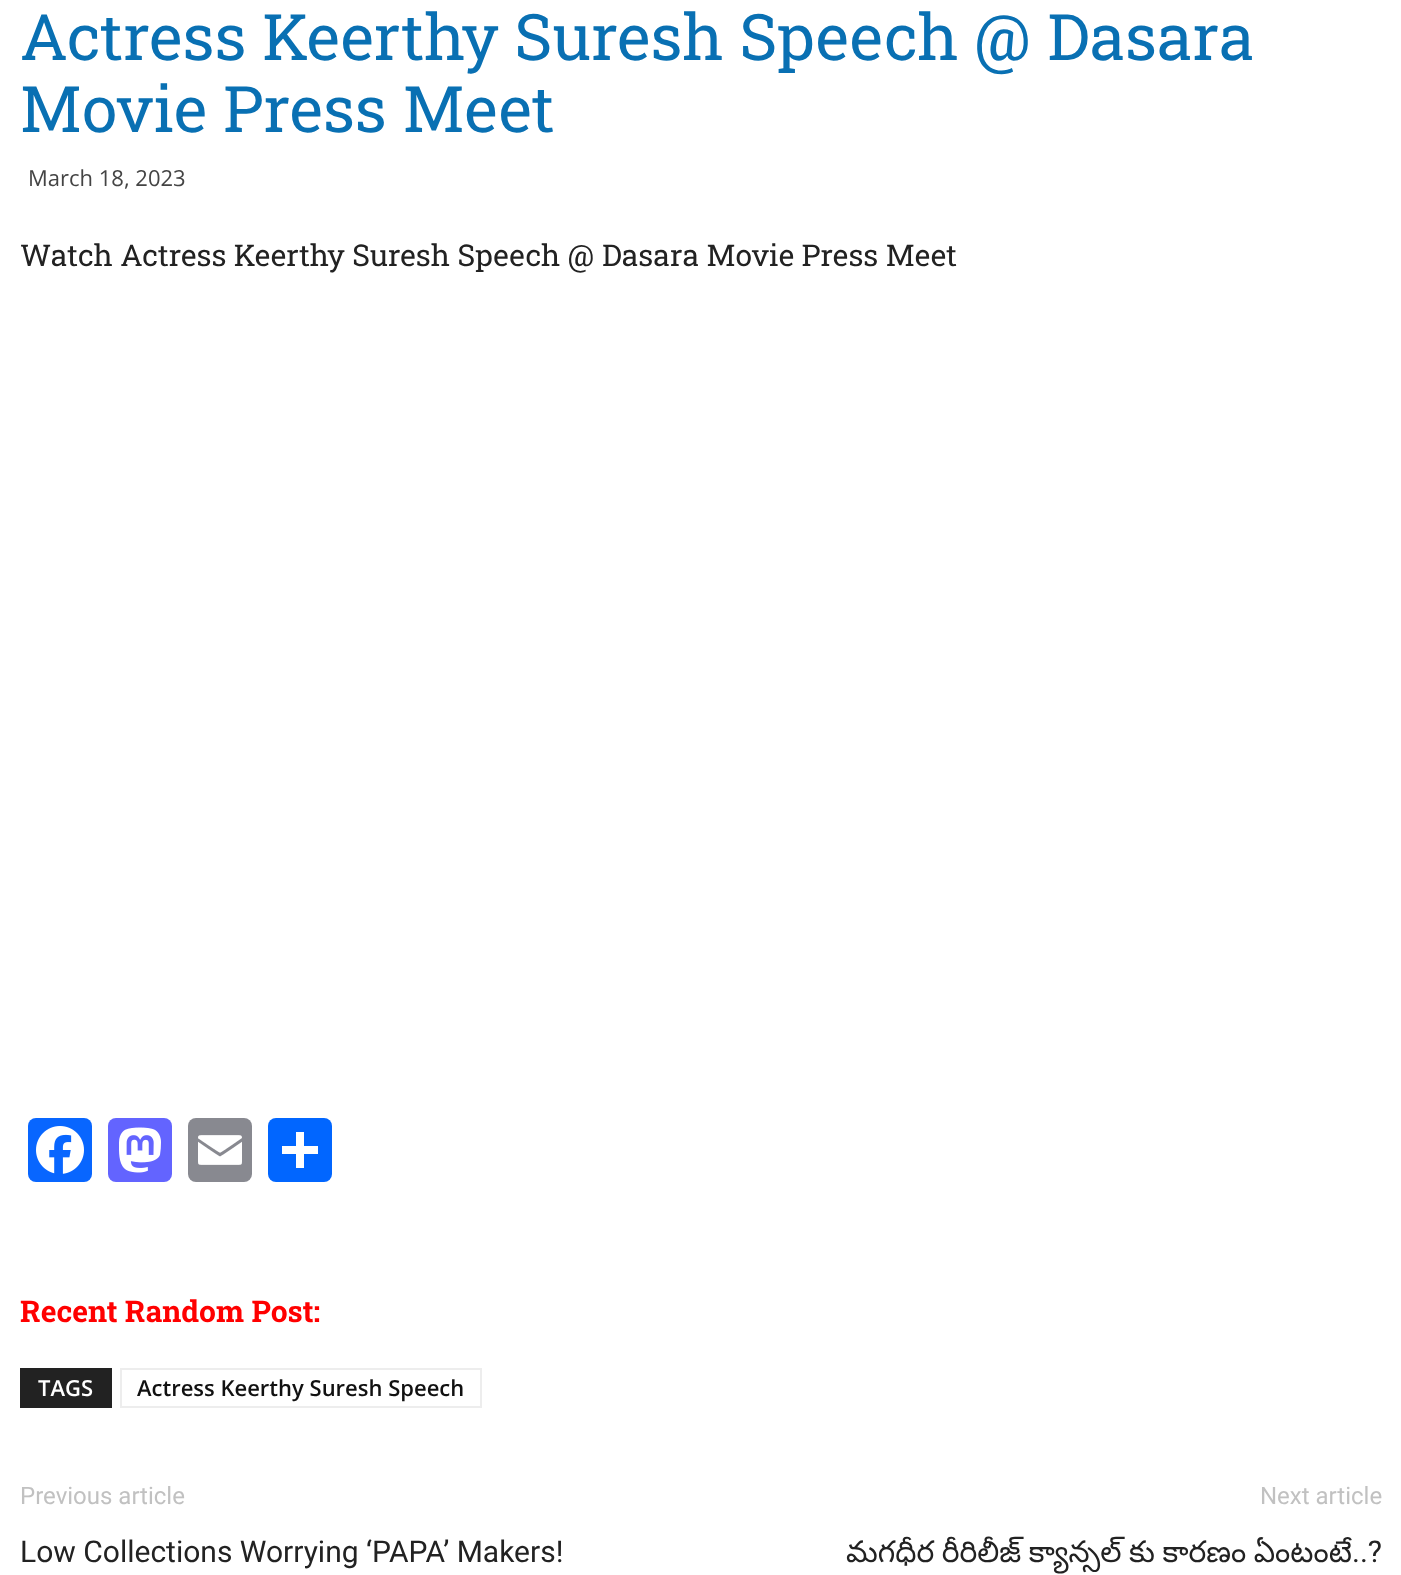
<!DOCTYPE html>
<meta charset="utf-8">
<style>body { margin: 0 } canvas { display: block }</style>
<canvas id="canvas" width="1401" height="1575"></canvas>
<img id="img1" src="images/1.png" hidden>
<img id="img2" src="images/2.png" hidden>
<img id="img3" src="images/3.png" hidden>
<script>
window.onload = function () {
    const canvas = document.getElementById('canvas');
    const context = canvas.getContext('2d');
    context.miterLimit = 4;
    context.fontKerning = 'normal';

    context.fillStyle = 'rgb(255, 255, 255)';
    context.fillRect(0, 0, 1401, 1575);
    context.fillStyle = 'rgb(8, 102, 255)';
    context.beginPath();
    context.roundRect(28, 1118, 64, 64, 8);
    context.fill();
    context.drawImage(document.getElementById('img1'), 36, 1126, 48, 48);
    context.fillStyle = 'rgb(99, 100, 255)';
    context.beginPath();
    context.roundRect(108, 1118, 64, 64, 8);
    context.fill();
    context.drawImage(document.getElementById('img2'), 119, 1127, 42, 46);
    context.fillStyle = 'rgb(136, 137, 144)';
    context.beginPath();
    context.roundRect(188, 1118, 64, 64, 8);
    context.fill();
    context.drawImage(document.getElementById('img3'), 198, 1135, 44, 30);
    context.fillStyle = 'rgb(1, 102, 255)';
    context.beginPath();
    context.roundRect(268, 1118, 64, 64, 8);
    context.fill();
    context.fillStyle = 'rgb(255, 255, 255)';
    context.fillRect(296, 1132, 8, 36);
    context.fillRect(282, 1146, 36, 8);
    context.fillStyle = 'rgb(34, 34, 34)';
    context.fillRect(20, 1368, 92, 40);
    context.strokeStyle = 'rgb(237, 237, 237)';
    context.lineWidth = 2;
    context.strokeRect(121, 1369, 360, 38);
    context.font = '64px Roboto Slab';
    context.fillStyle = 'rgb(9, 112, 179)';
    context.fillText('Actress Keerthy Suresh Speech @ Dasara', 20, 60);
    context.fillText('Movie Press Meet', 20, 132);
    context.font = '22px Open Sans';
    context.fillStyle = 'rgb(68, 68, 68)';
    context.fillText('March 18, 2023', 28, 186);
    context.font = '30px Roboto Slab';
    context.fillStyle = 'rgb(34, 34, 34)';
    context.fillText('Watch Actress Keerthy Suresh Speech @ Dasara Movie Press Meet', 20, 266);
    context.font = 'bold 30px Roboto Slab';
    context.fillStyle = 'rgb(255, 0, 0)';
    context.fillText('Recent Random Post:', 20, 1322);
    context.font = '600 22px Open Sans';
    context.fillStyle = 'rgb(255, 255, 255)';
    context.fillText('TAGS', 38, 1396);
    context.fillStyle = 'rgb(17, 17, 17)';
    context.fillText('Actress Keerthy Suresh Speech', 137, 1396);
    context.font = '24px Roboto';
    context.fillStyle = 'rgb(193, 193, 193)';
    context.fillText('Previous article', 20, 1504);
    context.font = '30px Roboto';
    context.fillStyle = 'rgb(34, 34, 34)';
    context.fillText('Low Collections Worrying ‘PAPA’ Makers!', 20, 1562);
    context.font = '24px Roboto';
    context.fillStyle = 'rgb(193, 193, 193)';
    context.fillText('Next article', 1260, 1504);
    context.wordSpacing = '-1px';
    context.font = '30px Noto Sans Telugu';
    context.fillStyle = 'rgb(34, 34, 34)';
    context.fillText('మగధీర రీరిలీజ్ క్యాన్సల్ కు కారణం ఏంటంటే', 846, 1562);
    context.wordSpacing = '0px';
    context.font = '30px Roboto';
    context.fillText('..?', 1352, 1562);
};
</script>
